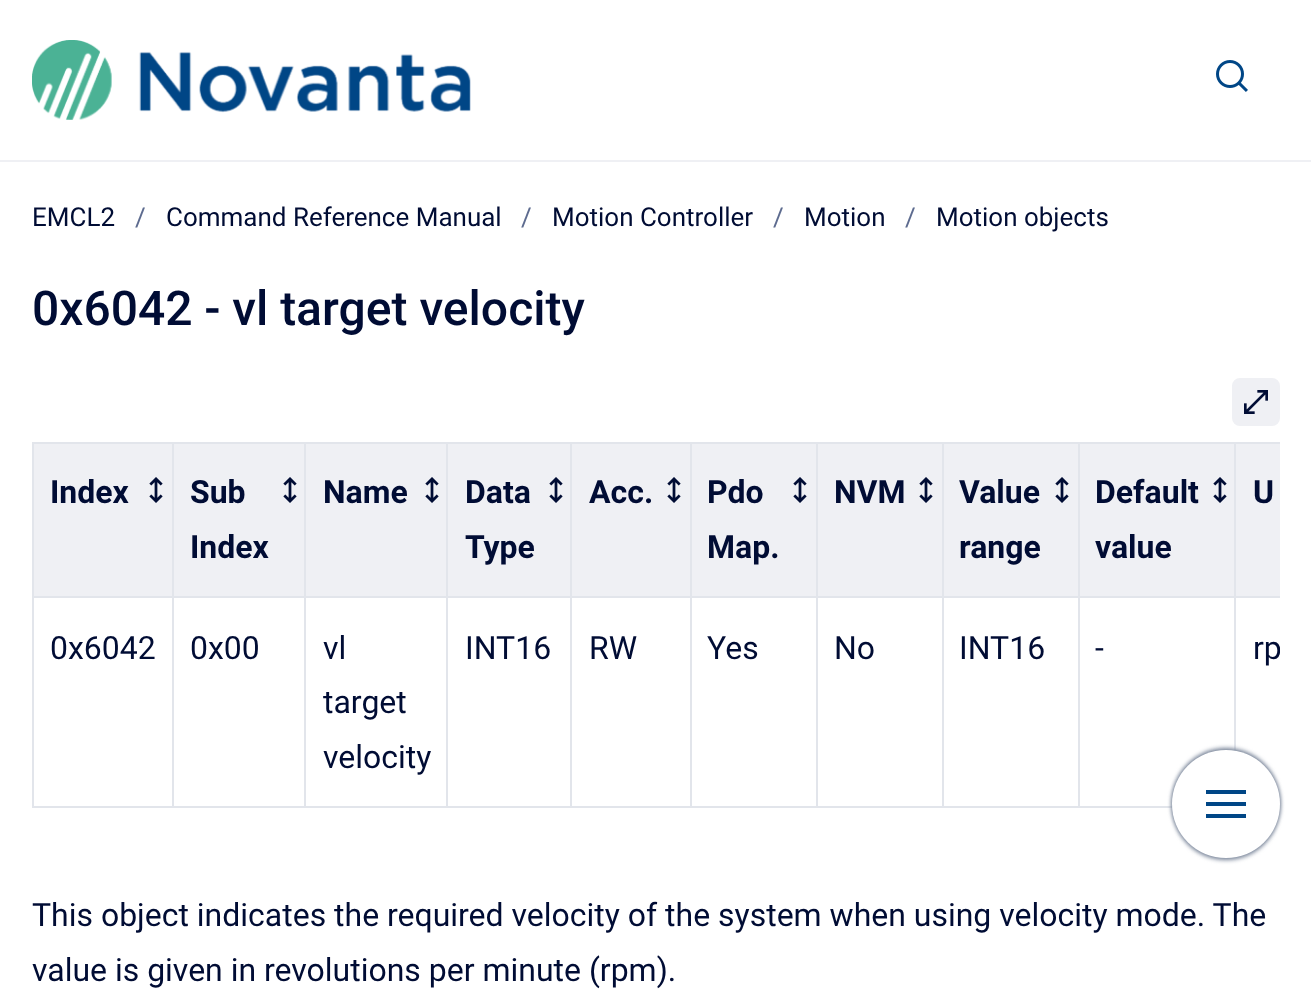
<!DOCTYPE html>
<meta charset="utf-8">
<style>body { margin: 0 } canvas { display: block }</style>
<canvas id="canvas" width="1311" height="998"></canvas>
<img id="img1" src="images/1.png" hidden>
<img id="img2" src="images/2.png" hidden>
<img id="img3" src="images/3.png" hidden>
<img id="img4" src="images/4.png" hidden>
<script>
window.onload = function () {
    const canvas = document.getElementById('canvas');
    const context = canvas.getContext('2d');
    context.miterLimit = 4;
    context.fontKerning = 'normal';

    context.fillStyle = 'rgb(255, 255, 255)';
    context.fillRect(0, 0, 1311, 998);
    context.fillStyle = 'rgb(239, 240, 244)';
    context.fillRect(0, 160, 1311, 2);
    context.drawImage(document.getElementById('img1'), 32, 40, 439, 80);
    context.drawImage(document.getElementById('img2'), 1216, 60, 32, 32);
    context.beginPath();
    context.roundRect(1233, 379, 46, 46, 7);
    context.fill();
    context.strokeStyle = 'rgb(239, 240, 244)';
    context.lineWidth = 2;
    context.stroke();
    context.drawImage(document.getElementById('img3'), 1244, 390, 24, 24);
    context.fillStyle = 'rgb(226, 229, 235)';
    context.fillRect(32, 442, 1248, 2);
    context.fillRect(32, 806, 1248, 2);
    context.fillRect(32, 442, 2, 366);
    context.fillStyle = 'rgb(239, 240, 244)';
    context.fillRect(34, 444, 138, 152);
    context.drawImage(document.getElementById('img4'), 149, 477, 14, 26);
    context.fillRect(174, 444, 130, 152);
    context.drawImage(document.getElementById('img4'), 283, 477, 14, 26);
    context.fillStyle = 'rgb(226, 229, 235)';
    context.fillRect(1234, 596, 46, 2);
    context.fillRect(1234, 596, 2, 155);
    context.fillRect(1078, 596, 158, 2);
    context.fillRect(1078, 596, 2, 212);
    context.fillRect(942, 596, 138, 2);
    context.fillRect(942, 596, 2, 212);
    context.fillRect(816, 596, 128, 2);
    context.fillRect(816, 596, 2, 212);
    context.fillRect(690, 596, 128, 2);
    context.fillRect(690, 596, 2, 212);
    context.fillRect(570, 596, 122, 2);
    context.fillRect(570, 596, 2, 212);
    context.fillRect(446, 596, 126, 2);
    context.fillRect(446, 596, 2, 212);
    context.fillRect(304, 596, 144, 2);
    context.fillRect(304, 596, 2, 212);
    context.fillRect(172, 596, 134, 2);
    context.fillRect(172, 596, 2, 212);
    context.fillRect(32, 596, 142, 2);
    context.fillRect(172, 442, 2, 156);
    context.fillStyle = 'rgb(239, 240, 244)';
    context.fillRect(306, 444, 140, 152);
    context.drawImage(document.getElementById('img4'), 425, 477, 14, 26);
    context.fillStyle = 'rgb(226, 229, 235)';
    context.fillRect(304, 442, 2, 156);
    context.fillStyle = 'rgb(239, 240, 244)';
    context.fillRect(448, 444, 122, 152);
    context.drawImage(document.getElementById('img4'), 549, 477, 14, 26);
    context.fillStyle = 'rgb(226, 229, 235)';
    context.fillRect(446, 442, 2, 156);
    context.fillStyle = 'rgb(239, 240, 244)';
    context.fillRect(572, 444, 118, 152);
    context.drawImage(document.getElementById('img4'), 667, 477, 14, 26);
    context.fillStyle = 'rgb(226, 229, 235)';
    context.fillRect(570, 442, 2, 156);
    context.fillStyle = 'rgb(239, 240, 244)';
    context.fillRect(692, 444, 124, 152);
    context.drawImage(document.getElementById('img4'), 793, 477, 14, 26);
    context.fillStyle = 'rgb(226, 229, 235)';
    context.fillRect(690, 442, 2, 156);
    context.fillStyle = 'rgb(239, 240, 244)';
    context.fillRect(818, 444, 124, 152);
    context.drawImage(document.getElementById('img4'), 919, 477, 14, 26);
    context.fillStyle = 'rgb(226, 229, 235)';
    context.fillRect(816, 442, 2, 156);
    context.fillStyle = 'rgb(239, 240, 244)';
    context.fillRect(944, 444, 134, 152);
    context.drawImage(document.getElementById('img4'), 1055, 477, 14, 26);
    context.fillStyle = 'rgb(226, 229, 235)';
    context.fillRect(942, 442, 2, 156);
    context.fillStyle = 'rgb(239, 240, 244)';
    context.fillRect(1080, 444, 154, 152);
    context.drawImage(document.getElementById('img4'), 1213, 477, 14, 26);
    context.fillStyle = 'rgb(226, 229, 235)';
    context.fillRect(1078, 442, 2, 156);
    context.fillStyle = 'rgb(239, 240, 244)';
    context.fillRect(1236, 444, 44, 152);
    context.fillStyle = 'rgb(226, 229, 235)';
    context.fillRect(1234, 442, 2, 156);
    context.fillStyle = 'rgb(122, 134, 154)';
    context.filter = 'blur(2px)';
    context.beginPath();
    context.roundRect(1172, 748, 108, 108, 54);
    context.fill();
    context.filter = 'none';
    context.filter = 'blur(2px)';
    context.beginPath();
    context.roundRect(1172, 752, 108, 108, 54);
    context.fill();
    context.filter = 'none';
    context.fillStyle = 'rgb(255, 255, 255)';
    context.beginPath();
    context.arc(1226, 804, 54, 0, 2 * Math.PI);
    context.fill();
    context.fillStyle = 'rgb(0, 70, 134)';
    context.fillRect(1206, 790, 40, 4);
    context.fillRect(1206, 802, 40, 4);
    context.fillRect(1206, 814, 40, 4);
    context.font = '26px Roboto';
    context.fillStyle = 'rgb(0, 12, 52)';
    context.fillText('EMCL2', 32, 226);
    context.fillStyle = 'rgb(93, 107, 143)';
    context.fillText('/', 135, 226);
    context.fillStyle = 'rgb(0, 12, 52)';
    context.fillText('Command Reference Manual', 166, 226);
    context.fillStyle = 'rgb(93, 107, 143)';
    context.fillText('/', 521, 226);
    context.fillStyle = 'rgb(0, 12, 52)';
    context.fillText('Motion Controller', 552, 226);
    context.fillStyle = 'rgb(93, 107, 143)';
    context.fillText('/', 773, 226);
    context.fillStyle = 'rgb(0, 12, 52)';
    context.fillText('Motion', 804, 226);
    context.fillStyle = 'rgb(93, 107, 143)';
    context.fillText('/', 905, 226);
    context.fillStyle = 'rgb(0, 12, 52)';
    context.fillText('Motion objects', 936, 226);
    context.font = '500 48px Roboto';
    context.fillText('0x6042 - vl target velocity', 32, 325);
    context.font = 'bold 32px Roboto';
    context.fillText('Index', 50, 503);
    context.fillText('Sub', 190, 503);
    context.fillText('Index', 190, 558);
    context.fillText('Name', 323, 503);
    context.fillText('Data', 465, 503);
    context.fillText('Type', 465, 558);
    context.fillText('Acc.', 589, 503);
    context.fillText('Pdo', 707, 503);
    context.fillText('Map.', 707, 558);
    context.fillText('NVM', 834, 503);
    context.fillText('Value', 959, 503);
    context.fillText('range', 959, 558);
    context.fillText('Default', 1095, 503);
    context.fillText('value', 1095, 558);
    context.fillText('U', 1253, 503);
    context.font = '32px Roboto';
    context.fillText('0x6042', 50, 659);
    context.fillText('0x00', 190, 659);
    context.fillText('vl', 323, 659);
    context.fillText('target', 323, 713);
    context.fillText('velocity', 323, 768);
    context.fillText('INT16', 465, 659);
    context.fillText('RW', 589, 659);
    context.fillText('Yes', 707, 659);
    context.fillText('No', 834, 659);
    context.fillText('INT16', 959, 659);
    context.fillText('-', 1095, 659);
    context.save();
    context.beginPath();
    context.rect(32, 442, 1248, 366);
    context.clip();
    context.fillText('rp', 1253, 659);
    context.restore();
    context.fillText('This object indicates the required velocity of the system when using velocity mode. The', 32, 926);
    context.fillText('value is given in revolutions per minute (rpm).', 32, 981);
};
</script>
